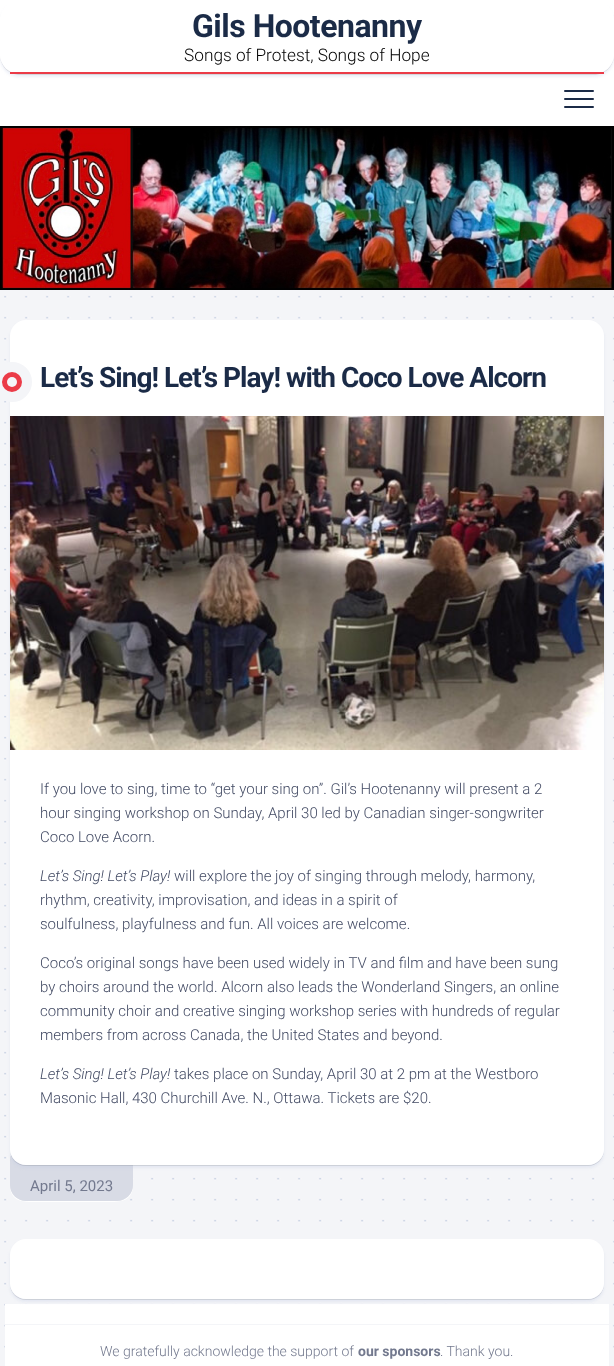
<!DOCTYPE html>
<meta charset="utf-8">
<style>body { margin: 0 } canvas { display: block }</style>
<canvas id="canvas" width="614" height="1366"></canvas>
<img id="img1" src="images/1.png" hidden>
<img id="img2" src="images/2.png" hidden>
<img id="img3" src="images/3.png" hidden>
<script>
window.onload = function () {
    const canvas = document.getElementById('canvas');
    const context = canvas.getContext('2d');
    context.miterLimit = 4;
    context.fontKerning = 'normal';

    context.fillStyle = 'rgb(255, 255, 255)';
    context.fillRect(0, 0, 614, 1366);
    context.save();
    context.beginPath();
    context.moveTo(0, 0);
    context.lineTo(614, 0);
    context.lineTo(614, 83);
    context.lineTo(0, 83);
    context.closePath();
    context.moveTo(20, 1);
    context.lineTo(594, 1);
    context.bezierCurveTo(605, 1, 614, 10, 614, 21);
    context.lineTo(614, 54);
    context.bezierCurveTo(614, 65, 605, 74, 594, 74);
    context.lineTo(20, 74);
    context.bezierCurveTo(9, 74, 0, 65, 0, 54);
    context.lineTo(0, 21);
    context.bezierCurveTo(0, 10, 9, 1, 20, 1);
    context.closePath();
    context.clip('evenodd');
    context.fillStyle = 'rgba(193, 203, 230, 0.3)';
    context.filter = 'blur(1.5px)';
    context.beginPath();
    context.roundRect(0, 4, 614, 73, 20);
    context.fill();
    context.filter = 'none';
    context.restore();
    context.fillStyle = 'rgba(0, 0, 0, 0.1)';
    context.beginPath();
    context.moveTo(0, 54);
    context.lineTo(0, 55);
    context.bezierCurveTo(0, 66, 9, 75, 20, 75);
    context.lineTo(594, 75);
    context.bezierCurveTo(605, 75, 614, 66, 614, 55);
    context.lineTo(614, 54);
    context.bezierCurveTo(614, 65, 605, 74, 594, 74);
    context.lineTo(20, 74);
    context.bezierCurveTo(9, 74, 0, 65, 0, 54);
    context.closePath();
    context.fill();
    context.fillStyle = 'rgba(255, 255, 255, 0.9)';
    context.beginPath();
    context.roundRect(0, 1, 614, 73, 20);
    context.fill();
    context.fillStyle = 'rgb(235, 59, 72)';
    context.fillRect(10, 72, 594, 2);
    context.fillStyle = 'rgb(27, 43, 71)';
    context.beginPath();
    context.roundRect(564, 90, 30, 2, 1);
    context.fill();
    context.beginPath();
    context.roundRect(564, 98, 30, 2, 1);
    context.fill();
    context.beginPath();
    context.roundRect(564, 106, 30, 2, 1);
    context.fill();
    context.fillStyle = 'rgb(244, 245, 248)';
    context.fillRect(0, 290, 614, 1076);
    context.drawImage(document.getElementById('img1'), 4, 290, 610, 1058);
    context.drawImage(document.getElementById('img2'), 0, 126, 614, 164);
    context.fillStyle = 'rgb(255, 255, 255)';
    context.beginPath();
    context.moveTo(10, 1185);
    context.bezierCurveTo(10, 1204, 27, 1202, 41, 1202);
    context.lineTo(102, 1202);
    context.bezierCurveTo(116, 1202, 133, 1204, 133, 1185);
    context.bezierCurveTo(133, 1194, 126, 1201, 117, 1201);
    context.lineTo(26, 1201);
    context.bezierCurveTo(17, 1201, 10, 1194, 10, 1185);
    context.closePath();
    context.fill();
    context.fillStyle = 'rgb(216, 219, 229)';
    context.beginPath();
    context.roundRect(10, 1145, 123, 56, 16);
    context.fill();
    context.fillStyle = 'rgba(0, 0, 0, 0.1)';
    context.beginPath();
    context.moveTo(26, 1146);
    context.lineTo(117, 1146);
    context.bezierCurveTo(126, 1146, 133, 1153, 133, 1162);
    context.bezierCurveTo(133, 1143, 116, 1145, 102, 1145);
    context.lineTo(41, 1145);
    context.bezierCurveTo(27, 1145, 10, 1143, 10, 1162);
    context.bezierCurveTo(10, 1153, 17, 1146, 26, 1146);
    context.closePath();
    context.fill();
    context.fillStyle = 'rgba(193, 203, 230, 0.3)';
    context.filter = 'blur(1.5px)';
    context.beginPath();
    context.roundRect(10, 323, 594, 845, 16);
    context.fill();
    context.filter = 'none';
    context.fillStyle = 'rgba(0, 0, 0, 0.1)';
    context.beginPath();
    context.moveTo(10, 1149);
    context.lineTo(10, 1150);
    context.bezierCurveTo(10, 1159, 17, 1166, 26, 1166);
    context.lineTo(588, 1166);
    context.bezierCurveTo(597, 1166, 604, 1159, 604, 1150);
    context.lineTo(604, 1149);
    context.bezierCurveTo(604, 1158, 597, 1165, 588, 1165);
    context.lineTo(26, 1165);
    context.bezierCurveTo(17, 1165, 10, 1158, 10, 1149);
    context.closePath();
    context.fill();
    context.fillStyle = 'rgb(255, 255, 255)';
    context.beginPath();
    context.roundRect(10, 320, 594, 845, 16);
    context.fill();
    context.fillStyle = 'rgb(235, 59, 72)';
    context.beginPath();
    context.arc(12, 382, 15, 0, 2 * Math.PI);
    context.fill();
    context.strokeStyle = 'rgb(244, 245, 248)';
    context.lineWidth = 10;
    context.stroke();
    context.fillStyle = 'rgb(244, 245, 248)';
    context.beginPath();
    context.arc(12, 382, 5, 0, 2 * Math.PI);
    context.fill();
    context.drawImage(document.getElementById('img3'), 10, 416, 594, 334);
    context.fillStyle = 'rgb(255, 255, 255)';
    context.fillRect(5, 1304, 604, 62);
    context.fillStyle = 'rgba(193, 203, 230, 0.3)';
    context.filter = 'blur(1.5px)';
    context.beginPath();
    context.roundRect(10, 1242, 594, 60, 16);
    context.fill();
    context.filter = 'none';
    context.fillStyle = 'rgba(0, 0, 0, 0.1)';
    context.beginPath();
    context.moveTo(10, 1283);
    context.lineTo(10, 1284);
    context.bezierCurveTo(10, 1293, 17, 1300, 26, 1300);
    context.lineTo(588, 1300);
    context.bezierCurveTo(597, 1300, 604, 1293, 604, 1284);
    context.lineTo(604, 1283);
    context.bezierCurveTo(604, 1292, 597, 1299, 588, 1299);
    context.lineTo(26, 1299);
    context.bezierCurveTo(17, 1299, 10, 1292, 10, 1283);
    context.closePath();
    context.fill();
    context.fillStyle = 'rgb(255, 255, 255)';
    context.beginPath();
    context.roundRect(10, 1239, 594, 60, 16);
    context.fill();
    context.fillStyle = 'rgb(244, 245, 248)';
    context.fillRect(5, 1324, 604, 1);
    context.letterSpacing = '-0.5px';
    context.font = 'bold 32px Roboto';
    context.fillStyle = 'rgb(27, 43, 71)';
    context.fillText('Gils Hootenanny', 192, 37);
    context.letterSpacing = '0px';
    context.font = '300 17.25px Roboto';
    context.fillStyle = 'rgb(0, 0, 0)';
    context.fillText('Songs of Protest, Songs of Hope', 184, 61);
    context.letterSpacing = '-1px';
    context.font = 'bold 28px Roboto';
    context.fillStyle = 'rgb(27, 43, 71)';
    context.fillText('Let’s Sing! Let’s Play! with Coco Love Alcorn', 40, 387);
    context.letterSpacing = '0px';
    context.font = '300 15px Roboto';
    context.fillStyle = 'rgb(67, 75, 100)';
    context.fillText('If you love to sing, time to “get your sing on”. Gil’s Hootenanny will present a 2', 40, 794);
    context.fillText('hour singing workshop on Sunday, April 30 led by Canadian singer-songwriter', 40, 818);
    context.fillText('Coco Love Acorn.', 40, 842);
    context.font = 'italic 300 15px Roboto';
    context.fillText('Let’s Sing! Let’s Play!', 40, 881);
    context.font = '300 15px Roboto';
    context.fillText('will explore the joy of singing through melody, harmony,', 174, 881);
    context.fillText('rhythm, creativity, improvisation, and ideas in a spirit of', 40, 905);
    context.fillText('soulfulness, playfulness and fun. All voices are welcome.', 40, 929);
    context.fillText('Coco’s original songs have been used widely in TV and film and have been sung', 40, 968);
    context.fillText('by choirs around the world. Alcorn also leads the Wonderland Singers, an online', 40, 992);
    context.fillText('community choir and creative singing workshop series with hundreds of regular', 40, 1016);
    context.fillText('members from across Canada, the United States and beyond.', 40, 1040);
    context.font = 'italic 300 15px Roboto';
    context.fillText('Let’s Sing! Let’s Play!', 40, 1079);
    context.font = '300 15px Roboto';
    context.fillText('takes place on Sunday, April 30 at 2 pm at the Westboro', 174, 1079);
    context.fillText('Masonic Hall, 430 Churchill Ave. N., Ottawa. Tickets are $20.', 40, 1103);
    context.font = '15px Roboto';
    context.fillStyle = 'rgb(115, 121, 142)';
    context.fillText('April 5, 2023', 30, 1191);
    context.font = '300 14px Roboto';
    context.fillText('We gratefully acknowledge the support of', 100, 1356);
    context.font = 'bold 14px Roboto';
    context.fillText('our sponsors', 358, 1356);
    context.font = '300 14px Roboto';
    context.fillText('. Thank you.', 440, 1356);
};
</script>
